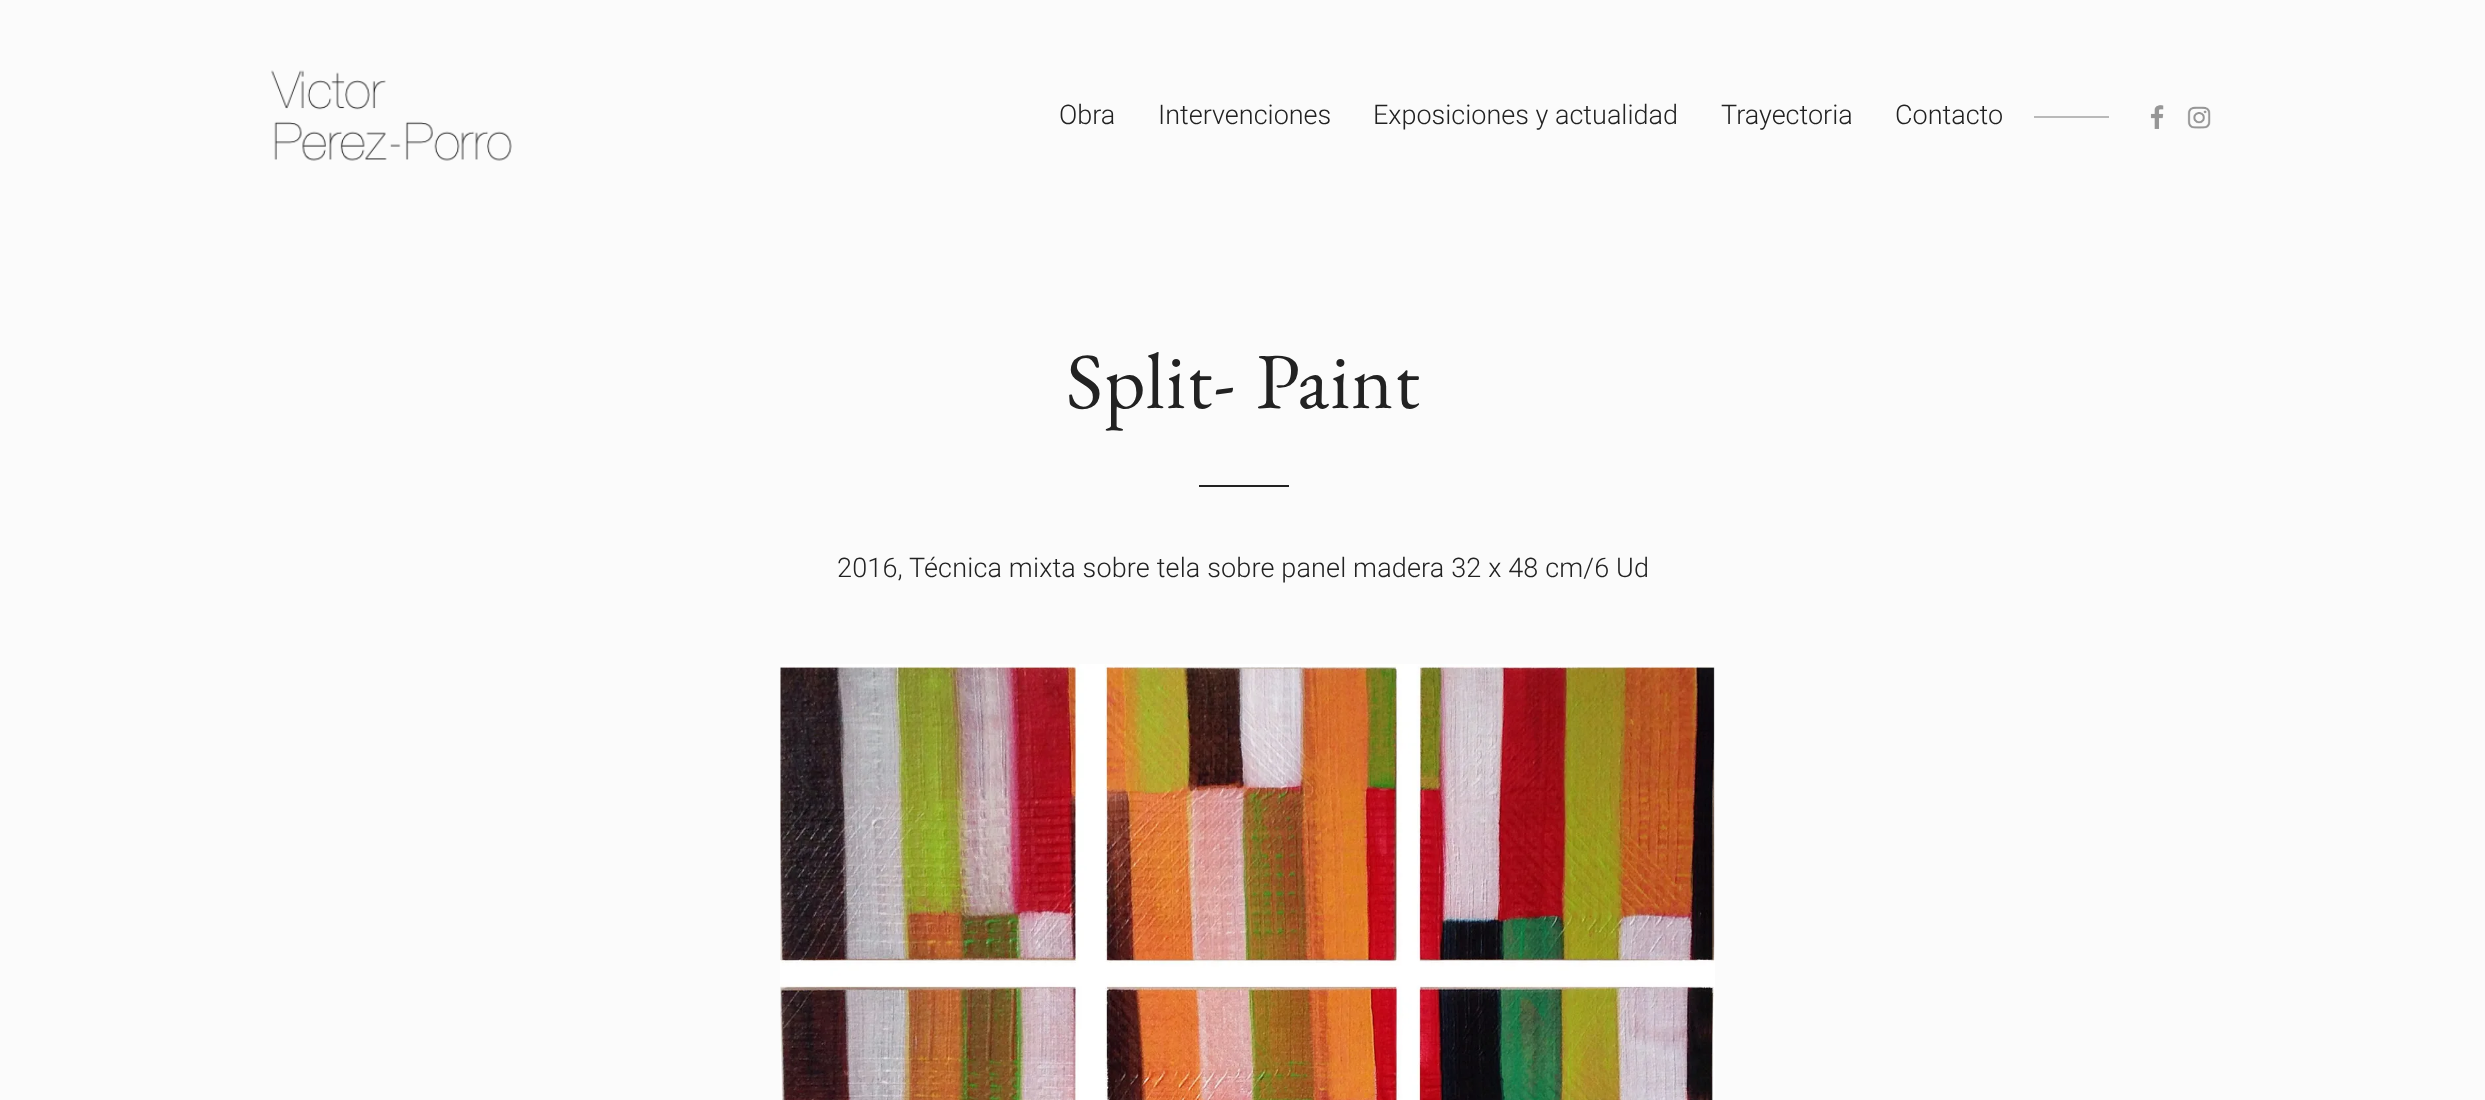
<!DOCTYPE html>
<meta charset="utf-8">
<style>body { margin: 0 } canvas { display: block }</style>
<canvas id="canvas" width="2485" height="1100"></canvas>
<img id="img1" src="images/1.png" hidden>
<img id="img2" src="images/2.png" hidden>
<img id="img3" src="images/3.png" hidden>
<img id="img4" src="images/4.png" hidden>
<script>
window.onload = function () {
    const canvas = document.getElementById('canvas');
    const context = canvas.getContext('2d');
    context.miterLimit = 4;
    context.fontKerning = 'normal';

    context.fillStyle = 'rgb(251, 251, 251)';
    context.fillRect(0, 0, 2485, 1100);
    context.drawImage(document.getElementById('img1'), 271, 70, 241, 91);
    context.fillStyle = 'rgb(185, 185, 185)';
    context.fillRect(2034, 116, 75, 2);
    context.drawImage(document.getElementById('img2'), 2150, 105, 14, 24);
    context.drawImage(document.getElementById('img3'), 2187, 106, 24, 23);
    context.fillStyle = 'rgb(34, 34, 34)';
    context.fillRect(1199, 485, 90, 2);
    context.drawImage(document.getElementById('img4'), 780, 664, 935, 436);
    context.font = '300 27px Roboto';
    context.fillText('Obra', 1059, 124);
    context.fillText('Intervenciones', 1158, 124);
    context.fillText('Exposiciones y actualidad', 1373, 124);
    context.fillText('Trayectoria', 1721, 124);
    context.fillText('Contacto', 1895, 124);
    context.letterSpacing = '1.4px';
    context.wordSpacing = '2px';
    context.font = '79.5px EB Garamond';
    context.fillText('Split- Paint', 1066, 408);
    context.letterSpacing = '0.15px';
    context.wordSpacing = '0px';
    context.font = '300 27px Roboto';
    context.fillText('2016, Técnica mixta sobre tela sobre panel madera 32 x 48 cm/6 Ud', 837, 577);
};
</script>
